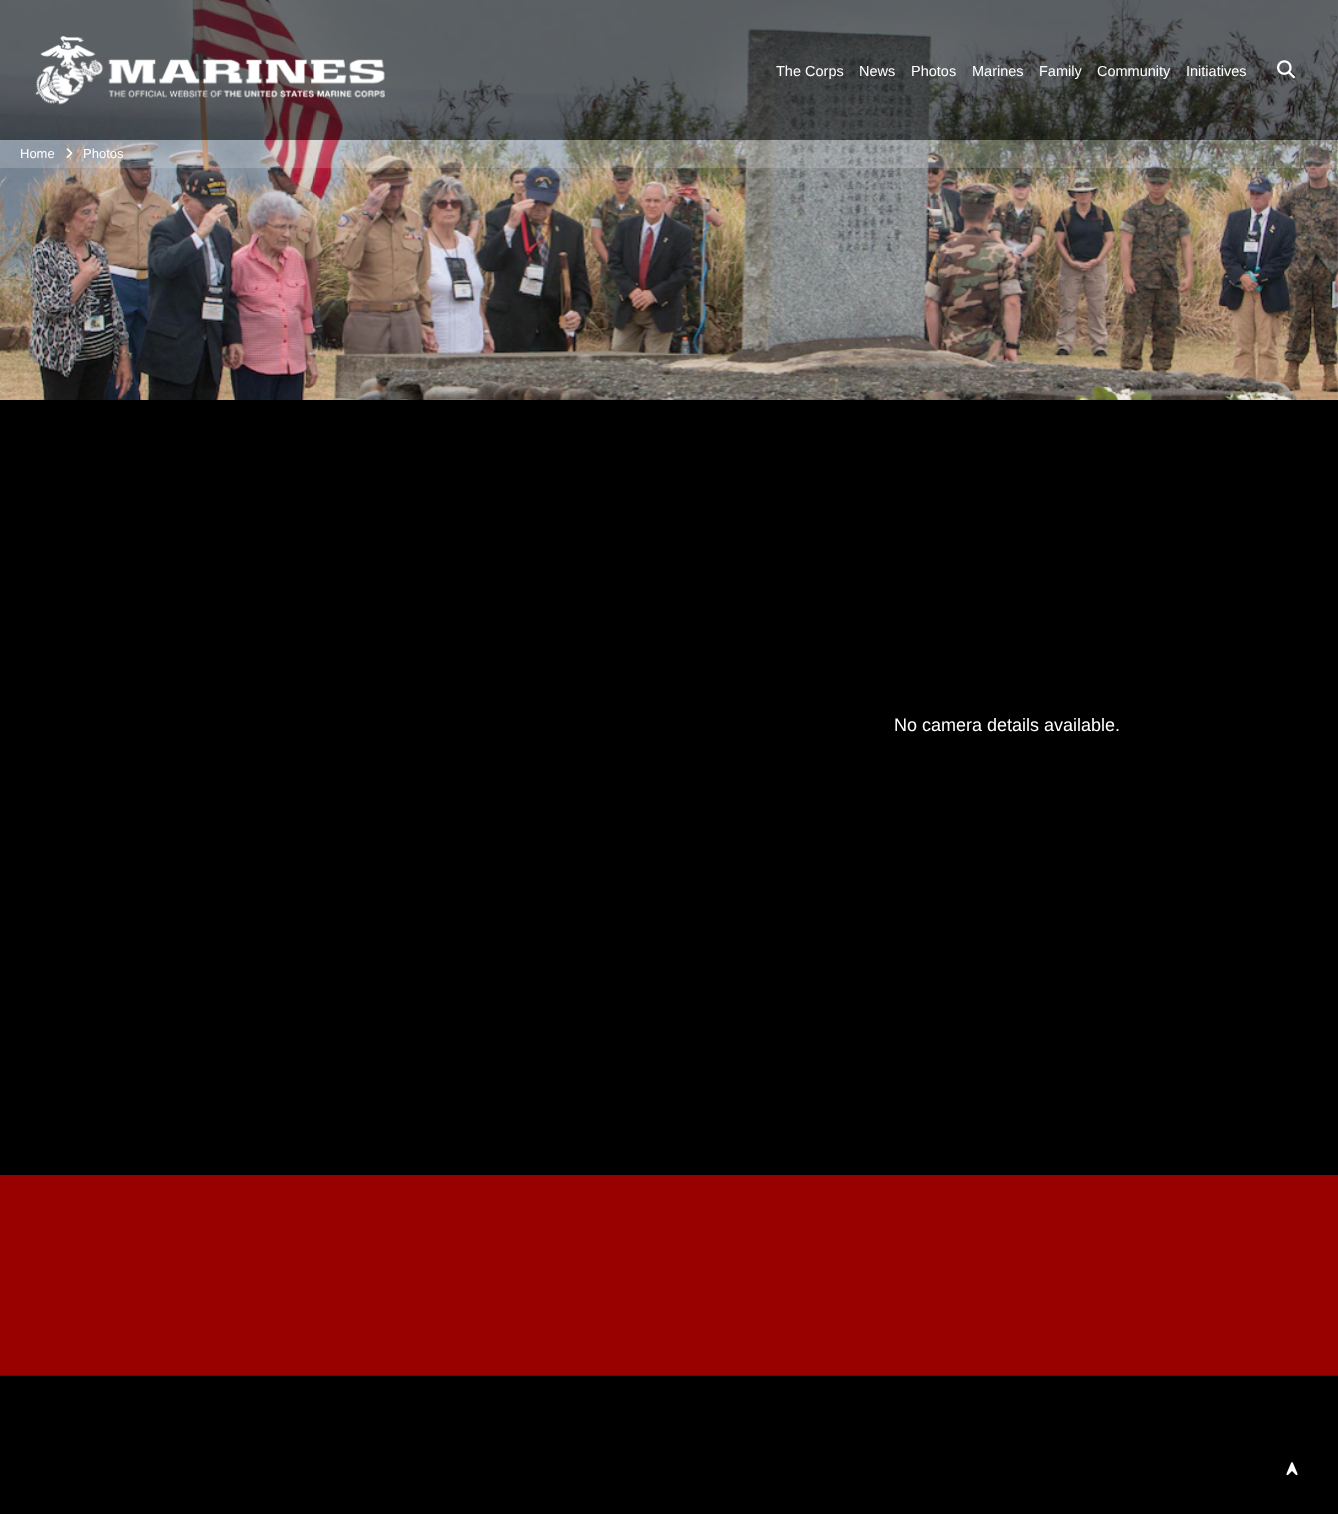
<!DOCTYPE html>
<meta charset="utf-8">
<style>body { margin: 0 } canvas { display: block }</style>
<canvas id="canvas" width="1338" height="1514"></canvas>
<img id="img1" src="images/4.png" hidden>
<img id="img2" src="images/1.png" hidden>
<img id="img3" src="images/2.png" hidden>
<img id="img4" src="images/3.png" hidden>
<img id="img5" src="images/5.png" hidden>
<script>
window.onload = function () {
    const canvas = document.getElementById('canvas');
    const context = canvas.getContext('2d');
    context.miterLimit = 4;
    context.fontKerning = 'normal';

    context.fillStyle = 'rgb(255, 255, 255)';
    context.fillRect(0, 0, 1338, 1514);
    context.drawImage(document.getElementById('img1'), 0, 0, 1338, 400);
    context.fillStyle = 'rgba(0, 0, 0, 0.5)';
    context.fillRect(0, 0, 1338, 140);
    context.drawImage(document.getElementById('img2'), 35, 36, 350, 69);
    context.drawImage(document.getElementById('img3'), 1277, 60, 18, 19);
    context.fillStyle = 'rgba(255, 255, 255, 0.17)';
    context.fillRect(0, 140, 1338, 28);
    context.drawImage(document.getElementById('img4'), 66, 148, 7, 10);
    context.fillStyle = 'rgb(0, 0, 0)';
    context.fillRect(0, 400, 1338, 775);
    context.fillStyle = 'rgb(153, 0, 0)';
    context.fillRect(0, 1175, 1338, 200);
    context.fillStyle = 'rgb(0, 0, 0)';
    context.fillRect(0, 1376, 1338, 138);
    context.fillStyle = 'rgb(35, 35, 35)';
    context.fillRect(0, 1375, 1338, 1);
    context.drawImage(document.getElementById('img5'), 1286, 1462, 12, 14);
    context.font = '14.5px Liberation Sans';
    context.fillStyle = 'rgb(255, 255, 255)';
    context.fillText('The Corps', 776, 76);
    context.fillText('News', 859, 76);
    context.fillText('Photos', 911, 76);
    context.fillText('Marines', 972, 76);
    context.fillText('Family', 1039, 76);
    context.fillText('Community', 1097, 76);
    context.fillText('Initiatives', 1186, 76);
    context.font = '13px Liberation Sans';
    context.fillText('Home', 20, 158);
    context.fillText('Photos', 83, 158);
    context.font = '18px Liberation Sans';
    context.fillText('No camera details available.', 894, 731);
};
</script>
